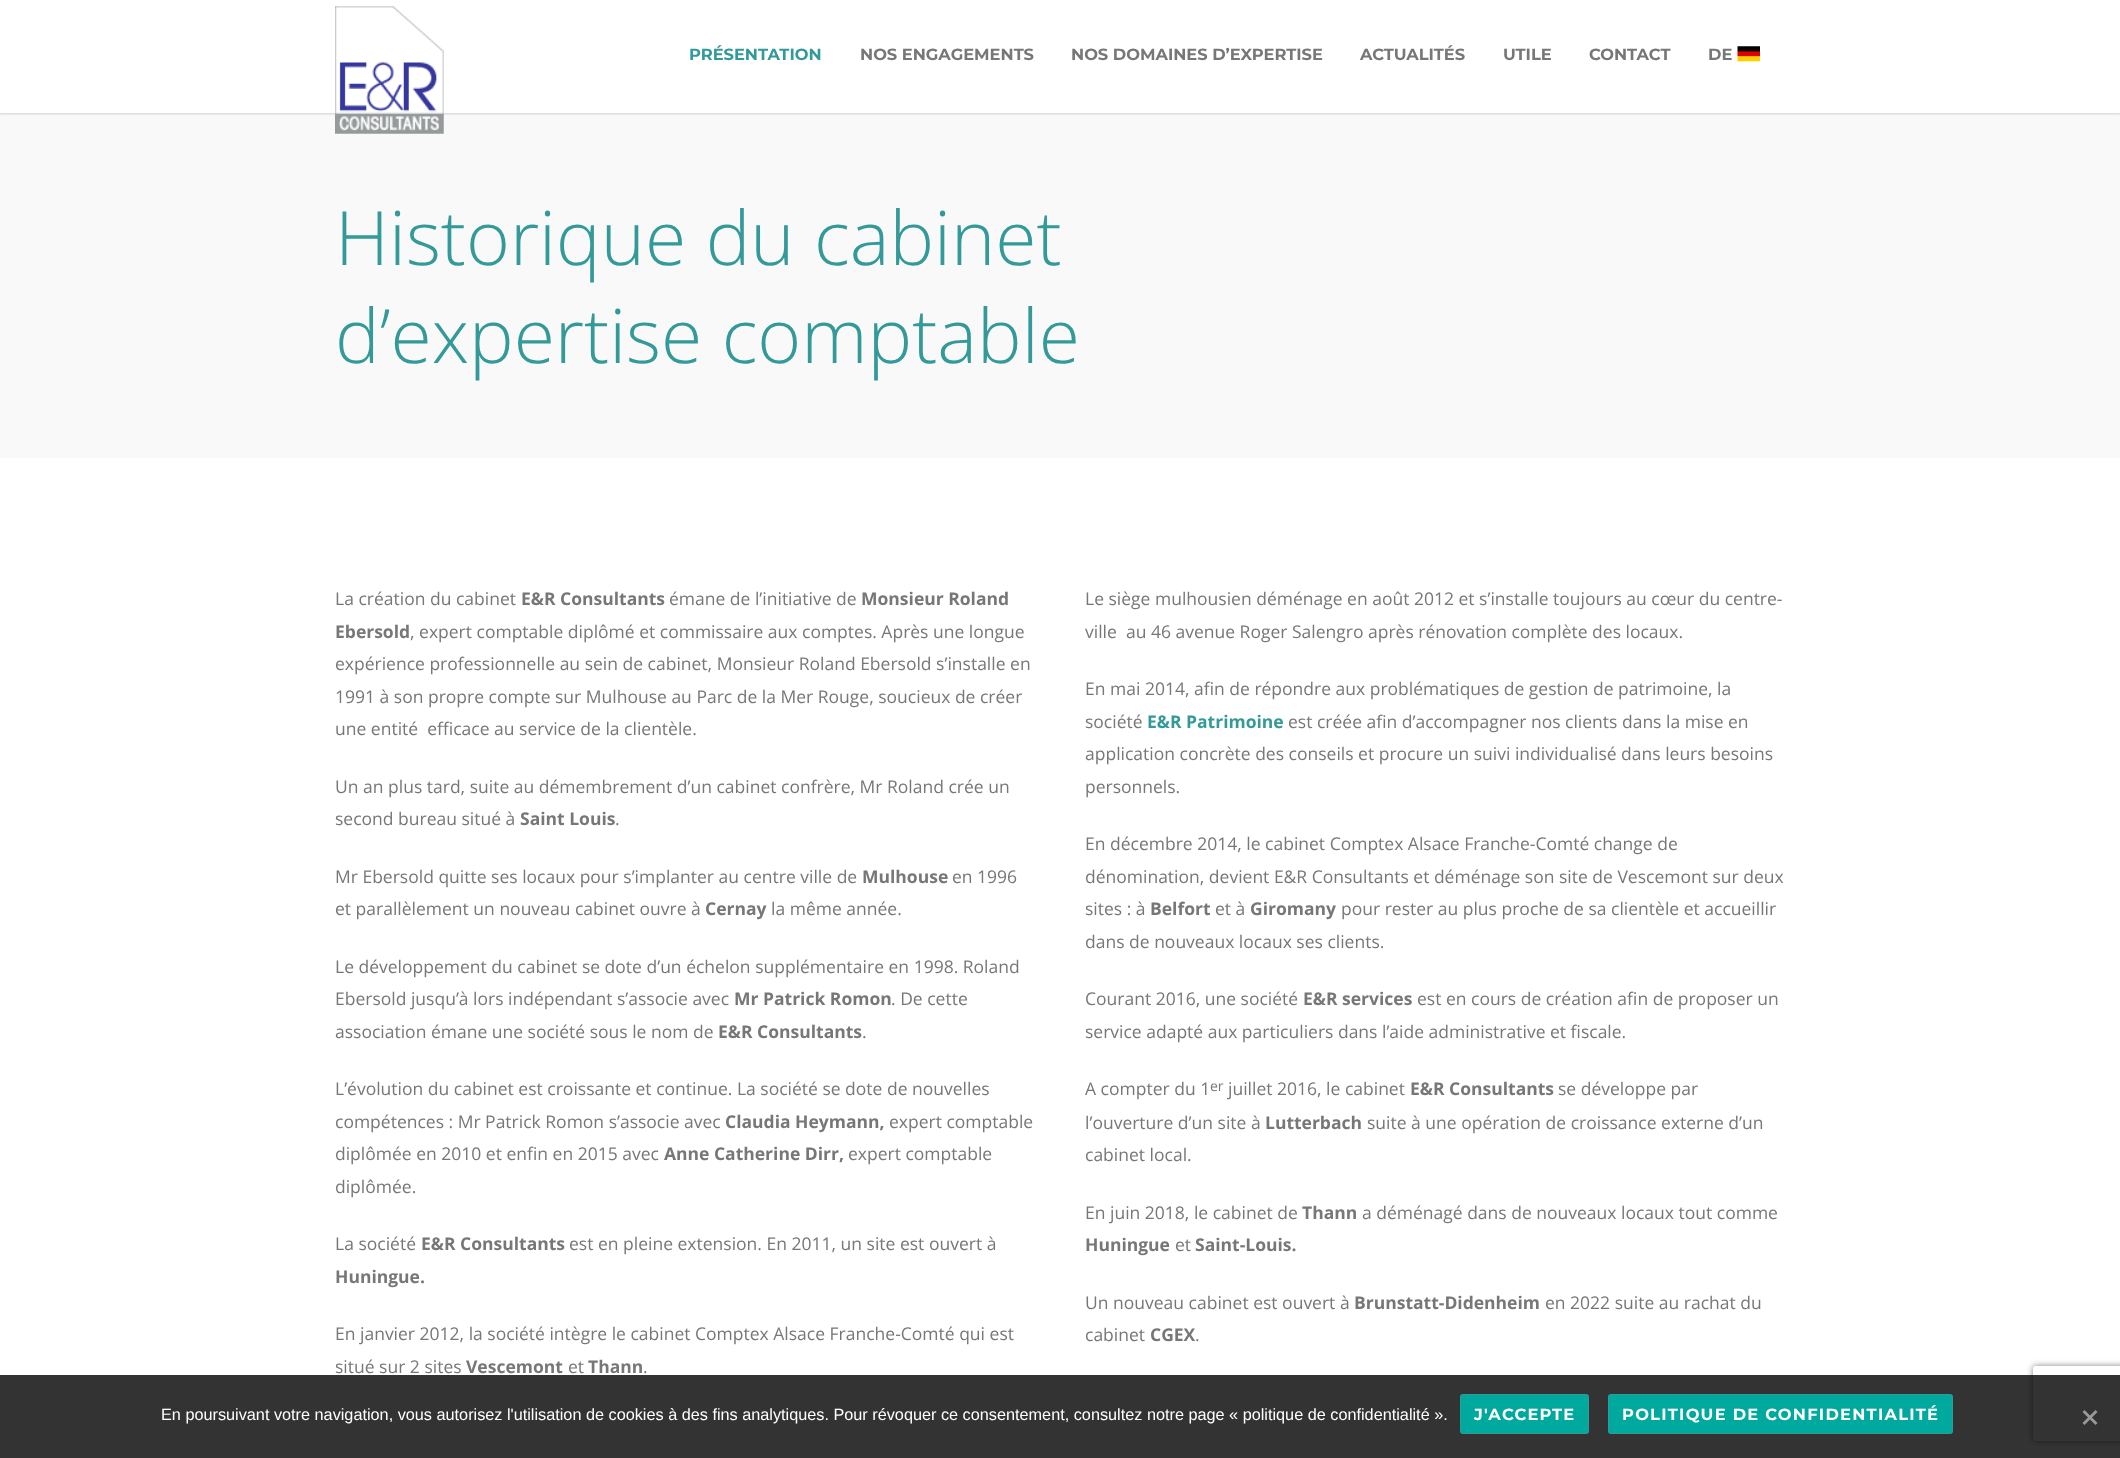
<!DOCTYPE html>
<meta charset="utf-8">
<style>body { margin: 0 } canvas { display: block }</style>
<canvas id="canvas" width="2120" height="1458"></canvas>
<img id="img1" src="images/1.png" hidden>
<img id="img2" src="images/2.png" hidden>
<script>
window.onload = function () {
    const canvas = document.getElementById('canvas');
    const context = canvas.getContext('2d');
    context.miterLimit = 4;
    context.fontKerning = 'normal';

    context.fillStyle = 'rgb(255, 255, 255)';
    context.fillRect(0, 0, 2120, 1458);
    context.fillStyle = 'rgb(249, 249, 249)';
    context.fillRect(0, 113, 2120, 345);
    context.fillStyle = 'rgba(0, 0, 0, 0.16)';
    context.filter = 'blur(1px)';
    context.beginPath();
    context.rect(-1, -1, 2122, 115);
    context.fill();
    context.filter = 'none';
    context.fillStyle = 'rgb(255, 255, 255)';
    context.fillRect(0, 0, 2120, 113);
    context.drawImage(document.getElementById('img1'), 335, 6, 109, 128);
    context.drawImage(document.getElementById('img2'), 1737, 46, 23, 16);
    context.save();
    context.beginPath();
    context.moveTo(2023, 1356);
    context.lineTo(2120, 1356);
    context.lineTo(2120, 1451);
    context.lineTo(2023, 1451);
    context.closePath();
    context.moveTo(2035.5, 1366);
    context.lineTo(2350.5, 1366);
    context.bezierCurveTo(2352, 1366, 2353, 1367, 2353, 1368.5);
    context.lineTo(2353, 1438.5);
    context.bezierCurveTo(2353, 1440, 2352, 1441, 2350.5, 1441);
    context.lineTo(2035.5, 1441);
    context.bezierCurveTo(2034, 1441, 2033, 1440, 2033, 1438.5);
    context.lineTo(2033, 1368.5);
    context.bezierCurveTo(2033, 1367, 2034, 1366, 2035.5, 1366);
    context.closePath();
    context.clip('evenodd');
    context.fillStyle = 'rgb(128, 128, 128)';
    context.filter = 'blur(3px)';
    context.beginPath();
    context.roundRect(2033, 1366, 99, 75, 2.5);
    context.fill();
    context.filter = 'none';
    context.restore();
    context.fillStyle = 'rgba(0, 0, 0, 0.8)';
    context.fillRect(0, 1375, 2120, 83);
    context.fillStyle = 'rgb(0, 169, 157)';
    context.beginPath();
    context.roundRect(1460.5, 1394.5, 128, 39, 2);
    context.fill();
    context.strokeStyle = 'rgb(51, 153, 153)';
    context.stroke();
    context.beginPath();
    context.roundRect(1608.5, 1394.5, 344, 39, 2);
    context.fill();
    context.stroke();
    context.fillStyle = 'rgb(153, 153, 153)';
    context.beginPath();
    context.moveTo(2095.5, 1410);
    context.lineTo(2097.5, 1412);
    context.lineTo(2084.5, 1425);
    context.lineTo(2082.5, 1423);
    context.closePath();
    context.fill();
    context.beginPath();
    context.moveTo(2082.5, 1412);
    context.lineTo(2084.5, 1410);
    context.lineTo(2097.5, 1423);
    context.lineTo(2095.5, 1425);
    context.closePath();
    context.fill();
    context.font = 'bold 16.25px Montserrat';
    context.fillStyle = 'rgb(51, 153, 153)';
    context.fillText('PRÉSENTATION', 689, 60);
    context.fillStyle = 'rgb(119, 119, 119)';
    context.fillText('NOS ENGAGEMENTS', 860, 60);
    context.fillText('NOS DOMAINES D’EXPERTISE', 1071, 60);
    context.fillText('ACTUALITÉS', 1360, 60);
    context.fillText('UTILE', 1503, 60);
    context.fillText('CONTACT', 1589, 60);
    context.fillText('DE', 1708, 60);
    context.font = '300 75px Open Sans';
    context.fillStyle = 'rgb(51, 153, 153)';
    context.fillText('Historique du cabinet', 335, 265);
    context.fillText('d’expertise comptable', 335, 363);
    context.font = '17.5px Open Sans';
    context.fillStyle = 'rgb(119, 119, 119)';
    context.fillText('La création du cabinet', 335, 605);
    context.font = 'bold 17.5px Open Sans';
    context.fillText('E&R Consultants', 521, 605);
    context.font = '17.5px Open Sans';
    context.fillText('émane de l’initiative de', 669, 605);
    context.font = 'bold 17.5px Open Sans';
    context.fillText('Monsieur Roland', 861, 605);
    context.fillText('Ebersold', 335, 638);
    context.font = '17.5px Open Sans';
    context.fillText(', expert comptable diplômé et commissaire aux comptes. Après une longue', 410, 638);
    context.fillText('expérience professionnelle au sein de cabinet, Monsieur Roland Ebersold s’installe en', 335, 670);
    context.fillText('1991 à son propre compte sur Mulhouse au Parc de la Mer Rouge, soucieux de créer', 335, 703);
    context.fillText('une entité  efficace au service de la clientèle.', 335, 735);
    context.fillText('Un an plus tard, suite au démembrement d’un cabinet confrère, Mr Roland crée un', 335, 793);
    context.fillText('second bureau situé à', 335, 825);
    context.font = 'bold 17.5px Open Sans';
    context.fillText('Saint Louis', 520, 825);
    context.font = '17.5px Open Sans';
    context.fillText('.', 615, 825);
    context.fillText('Mr Ebersold quitte ses locaux pour s’implanter au centre ville de', 335, 883);
    context.font = 'bold 17.5px Open Sans';
    context.fillText('Mulhouse', 862, 883);
    context.font = '17.5px Open Sans';
    context.fillText('en 1996', 952, 883);
    context.fillText('et parallèlement un nouveau cabinet ouvre à', 335, 915);
    context.font = 'bold 17.5px Open Sans';
    context.fillText('Cernay', 705, 915);
    context.font = '17.5px Open Sans';
    context.fillText('la même année.', 771, 915);
    context.fillText('Le développement du cabinet se dote d’un échelon supplémentaire en 1998. Roland', 335, 973);
    context.fillText('Ebersold jusqu’à lors indépendant s’associe avec', 335, 1005);
    context.font = 'bold 17.5px Open Sans';
    context.fillText('Mr Patrick Romon', 734, 1005);
    context.font = '17.5px Open Sans';
    context.fillText('. De cette', 891, 1005);
    context.fillText('association émane une société sous le nom de', 335, 1038);
    context.font = 'bold 17.5px Open Sans';
    context.fillText('E&R Consultants', 718, 1038);
    context.font = '17.5px Open Sans';
    context.fillText('.', 862, 1038);
    context.fillText('L’évolution du cabinet est croissante et continue. La société se dote de nouvelles', 335, 1095);
    context.fillText('compétences : Mr Patrick Romon s’associe avec', 335, 1128);
    context.font = 'bold 17.5px Open Sans';
    context.fillText('Claudia Heymann,', 725, 1128);
    context.font = '17.5px Open Sans';
    context.fillText('expert comptable', 889, 1128);
    context.fillText('diplômée en 2010 et enfin en 2015 avec', 335, 1160);
    context.font = 'bold 17.5px Open Sans';
    context.fillText('Anne Catherine Dirr,', 664, 1160);
    context.font = '17.5px Open Sans';
    context.fillText('expert comptable', 848, 1160);
    context.fillText('diplômée.', 335, 1193);
    context.fillText('La société', 335, 1250);
    context.font = 'bold 17.5px Open Sans';
    context.fillText('E&R Consultants', 421, 1250);
    context.font = '17.5px Open Sans';
    context.fillText('est en pleine extension. En 2011, un site est ouvert à', 569, 1250);
    context.font = 'bold 17.5px Open Sans';
    context.fillText('Huningue.', 335, 1283);
    context.font = '17.5px Open Sans';
    context.fillText('En janvier 2012, la société intègre le cabinet Comptex Alsace Franche-Comté qui est', 335, 1340);
    context.fillText('situé sur 2 sites', 335, 1373);
    context.font = 'bold 17.5px Open Sans';
    context.fillText('Vescemont', 466, 1373);
    context.font = '17.5px Open Sans';
    context.fillText('et', 568, 1373);
    context.font = 'bold 17.5px Open Sans';
    context.fillText('Thann', 588, 1373);
    context.font = '17.5px Open Sans';
    context.fillText('.', 643, 1373);
    context.fillText('Le siège mulhousien déménage en août 2012 et s’installe toujours au cœur du centre-', 1085, 605);
    context.fillText('ville  au 46 avenue Roger Salengro après rénovation complète des locaux.', 1085, 638);
    context.fillText('En mai 2014, afin de répondre aux problématiques de gestion de patrimoine, la', 1085, 695);
    context.fillText('société', 1085, 728);
    context.font = 'bold 17.5px Open Sans';
    context.fillStyle = 'rgb(51, 153, 153)';
    context.fillText('E&R Patrimoine', 1147, 728);
    context.font = '17.5px Open Sans';
    context.fillStyle = 'rgb(119, 119, 119)';
    context.fillText('est créée afin d’accompagner nos clients dans la mise en', 1288, 728);
    context.fillText('application concrète des conseils et procure un suivi individualisé dans leurs besoins', 1085, 760);
    context.fillText('personnels.', 1085, 793);
    context.fillText('En décembre 2014, le cabinet Comptex Alsace Franche-Comté change de', 1085, 850);
    context.fillText('dénomination, devient E&R Consultants et déménage son site de Vescemont sur deux', 1085, 883);
    context.fillText('sites : à', 1085, 915);
    context.font = 'bold 17.5px Open Sans';
    context.fillText('Belfort', 1150, 915);
    context.font = '17.5px Open Sans';
    context.fillText('et à', 1215, 915);
    context.font = 'bold 17.5px Open Sans';
    context.fillText('Giromany', 1250, 915);
    context.font = '17.5px Open Sans';
    context.fillText('pour rester au plus proche de sa clientèle et accueillir', 1341, 915);
    context.fillText('dans de nouveaux locaux ses clients.', 1085, 948);
    context.fillText('Courant 2016, une société', 1085, 1005);
    context.font = 'bold 17.5px Open Sans';
    context.fillText('E&R services', 1303, 1005);
    context.font = '17.5px Open Sans';
    context.fillText('est en cours de création afin de proposer un', 1417, 1005);
    context.fillText('service adapté aux particuliers dans l’aide administrative et fiscale.', 1085, 1038);
    context.fillText('A compter du 1', 1085, 1095);
    context.font = '14px Open Sans';
    context.fillText('er', 1210, 1091);
    context.font = '17.5px Open Sans';
    context.fillText('juillet 2016, le cabinet', 1228, 1095);
    context.font = 'bold 17.5px Open Sans';
    context.fillText('E&R Consultants', 1410, 1095);
    context.font = '17.5px Open Sans';
    context.fillText('se développe par', 1558, 1095);
    context.fillText('l’ouverture d’un site à', 1085, 1129);
    context.font = 'bold 17.5px Open Sans';
    context.fillText('Lutterbach', 1265, 1129);
    context.font = '17.5px Open Sans';
    context.fillText('suite à une opération de croissance externe d’un', 1367, 1129);
    context.fillText('cabinet local.', 1085, 1161);
    context.fillText('En juin 2018, le cabinet de', 1085, 1219);
    context.font = 'bold 17.5px Open Sans';
    context.fillText('Thann', 1302, 1219);
    context.font = '17.5px Open Sans';
    context.fillText('a déménagé dans de nouveaux locaux tout comme', 1362, 1219);
    context.font = 'bold 17.5px Open Sans';
    context.fillText('Huningue', 1085, 1251);
    context.font = '17.5px Open Sans';
    context.fillText('et', 1175, 1251);
    context.font = 'bold 17.5px Open Sans';
    context.fillText('Saint-Louis.', 1195, 1251);
    context.font = '17.5px Open Sans';
    context.fillText('Un nouveau cabinet est ouvert à', 1085, 1309);
    context.font = 'bold 17.5px Open Sans';
    context.fillText('Brunstatt-Didenheim', 1354, 1309);
    context.font = '17.5px Open Sans';
    context.fillText('en 2022 suite au rachat du', 1545, 1309);
    context.fillText('cabinet', 1085, 1341);
    context.font = 'bold 17.5px Open Sans';
    context.fillText('CGEX', 1150, 1341);
    context.font = '17.5px Open Sans';
    context.fillText('.', 1195, 1341);
    context.font = '16.25px Liberation Sans';
    context.fillStyle = 'rgb(255, 255, 255)';
    context.fillText('En poursuivant votre navigation, vous autorisez l\'utilisation de cookies à des fins analytiques. Pour révoquer ce consentement, consultez notre page « politique de confidentialité ».', 161, 1420);
    context.letterSpacing = '1.25px';
    context.font = 'bold 16.25px Montserrat';
    context.fillText('J\'ACCEPTE', 1474, 1420);
    context.fillText('POLITIQUE DE CONFIDENTIALITÉ', 1622, 1420);
};
</script>
